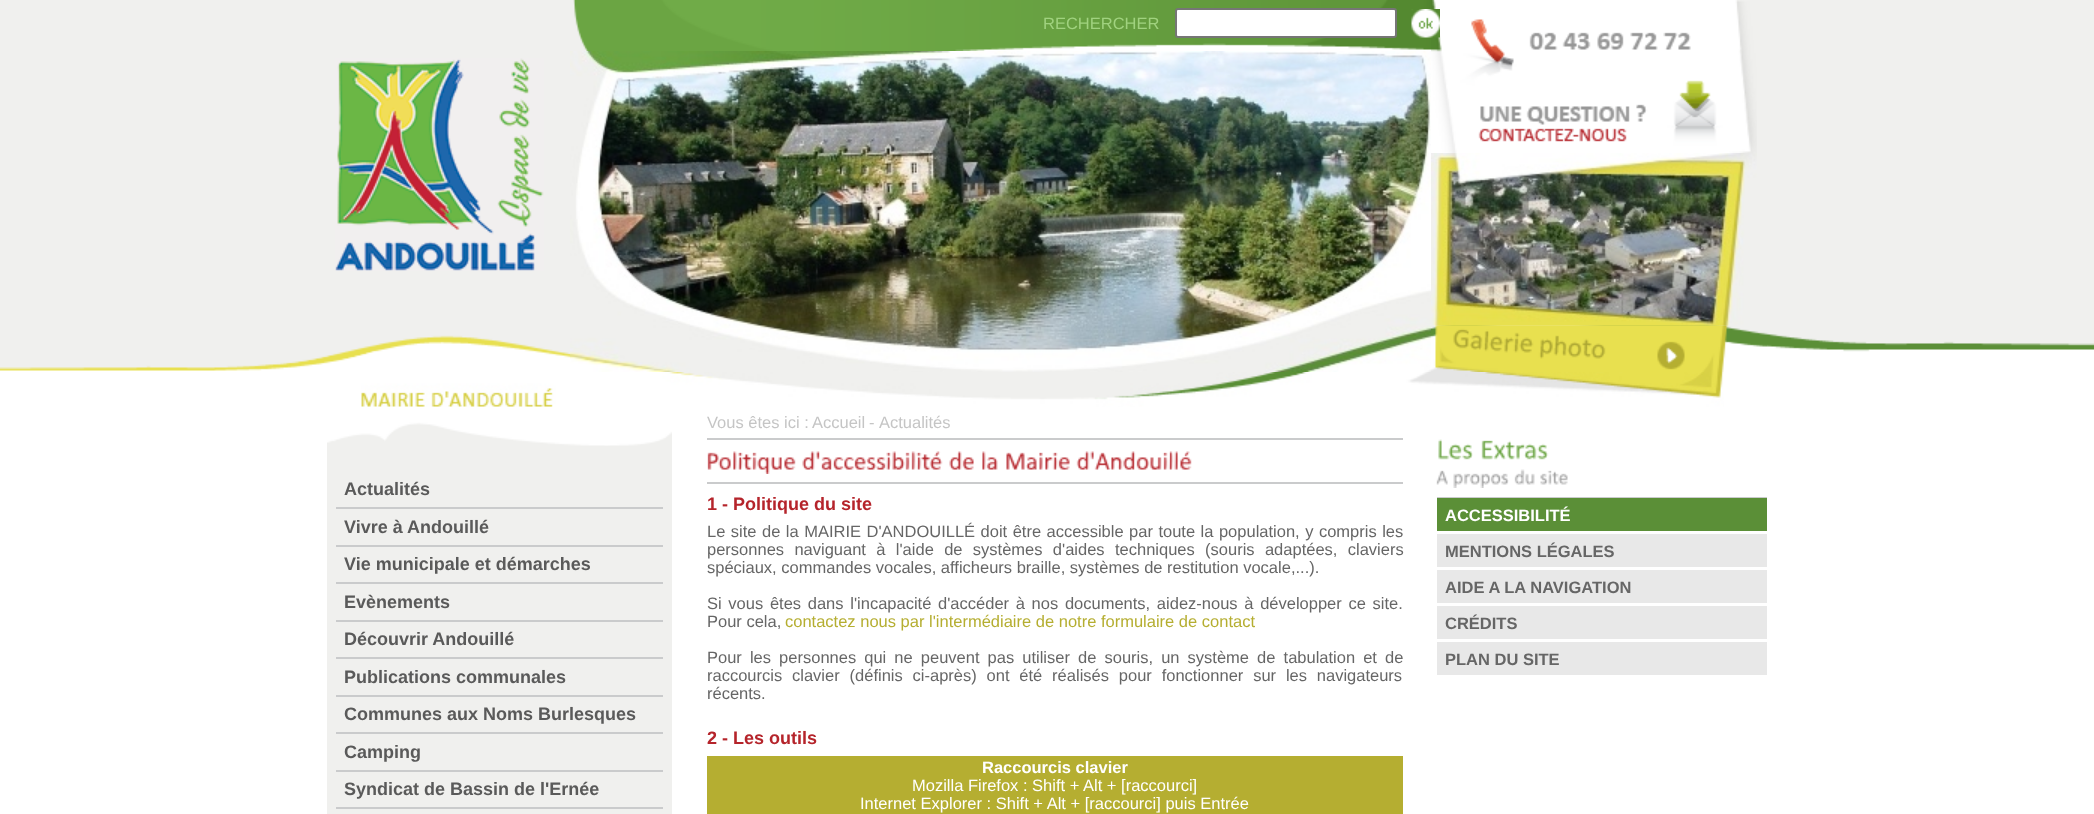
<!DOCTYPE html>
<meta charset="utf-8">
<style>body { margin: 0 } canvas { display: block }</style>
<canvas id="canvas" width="2094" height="814"></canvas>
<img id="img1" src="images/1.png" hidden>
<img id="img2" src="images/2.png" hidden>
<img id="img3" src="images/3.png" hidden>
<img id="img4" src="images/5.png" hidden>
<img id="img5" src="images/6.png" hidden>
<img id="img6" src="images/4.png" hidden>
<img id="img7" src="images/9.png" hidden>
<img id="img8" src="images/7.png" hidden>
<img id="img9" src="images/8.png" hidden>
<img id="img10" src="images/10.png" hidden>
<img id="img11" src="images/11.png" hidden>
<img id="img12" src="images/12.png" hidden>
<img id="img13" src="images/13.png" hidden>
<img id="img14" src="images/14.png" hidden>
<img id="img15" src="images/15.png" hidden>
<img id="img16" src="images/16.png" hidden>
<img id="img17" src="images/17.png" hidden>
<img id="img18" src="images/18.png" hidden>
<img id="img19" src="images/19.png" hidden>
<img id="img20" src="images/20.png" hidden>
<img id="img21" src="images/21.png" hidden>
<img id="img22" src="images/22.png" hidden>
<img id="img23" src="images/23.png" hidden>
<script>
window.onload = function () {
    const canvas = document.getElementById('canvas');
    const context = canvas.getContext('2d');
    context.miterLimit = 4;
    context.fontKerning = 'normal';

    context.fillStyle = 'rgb(255, 255, 255)';
    context.fillRect(0, 0, 2094, 814);
    context.drawImage(document.getElementById('img1'), 0, 0, 2094, 400);
    context.drawImage(document.getElementById('img2'), 361, 372, 1363, 35);
    context.drawImage(document.getElementById('img3'), 573, 0, 858, 51);
    context.beginPath();
    context.roundRect(1176, 9, 220, 28, 2);
    context.fill();
    context.strokeStyle = 'rgb(118, 118, 118)';
    context.lineWidth = 2;
    context.stroke();
    context.drawImage(document.getElementById('img4'), 570, 51, 863, 321);
    context.drawImage(document.getElementById('img5'), 1431, 0, 326, 153);
    context.drawImage(document.getElementById('img6'), 1411, 9, 29, 29);
    context.drawImage(document.getElementById('img7'), 1431, 325, 336, 47);
    context.drawImage(document.getElementById('img8'), 1432, 325, 322, 1);
    context.drawImage(document.getElementById('img9'), 1431, 153, 326, 173);
    context.drawImage(document.getElementById('img10'), 335, 58, 209, 213);
    context.fillStyle = 'rgb(240, 240, 238)';
    context.fillRect(327, 446, 345, 368);
    context.drawImage(document.getElementById('img11'), 327, 413, 345, 33);
    context.fillStyle = 'rgb(202, 203, 204)';
    context.fillRect(336, 507, 327, 2);
    context.fillRect(336, 545, 327, 2);
    context.fillRect(336, 582, 327, 2);
    context.fillRect(336, 620, 327, 2);
    context.fillRect(336, 657, 327, 2);
    context.fillRect(336, 695, 327, 2);
    context.fillRect(336, 732, 327, 2);
    context.fillRect(336, 770, 327, 2);
    context.fillRect(336, 807, 327, 2);
    context.fillRect(707, 438, 696, 2);
    context.fillRect(707, 482, 696, 2);
    context.drawImage(document.getElementById('img12'), 707, 451, 89, 23);
    context.drawImage(document.getElementById('img13'), 802, 451, 141, 19);
    context.drawImage(document.getElementById('img14'), 949, 451, 25, 19);
    context.drawImage(document.getElementById('img15'), 982, 451, 16, 19);
    context.drawImage(document.getElementById('img16'), 1006, 452, 64, 18);
    context.drawImage(document.getElementById('img17'), 1076, 451, 116, 19);
    context.fillStyle = 'rgb(181, 174, 49)';
    context.fillRect(707, 756, 696, 58);
    context.drawImage(document.getElementById('img18'), 1438, 439, 35, 21);
    context.drawImage(document.getElementById('img19'), 1481, 440, 68, 20);
    context.fillStyle = 'rgb(202, 203, 204)';
    context.fillRect(1437, 497, 330, 1);
    context.drawImage(document.getElementById('img20'), 1436, 470, 12, 15);
    context.drawImage(document.getElementById('img21'), 1453, 473, 56, 15);
    context.drawImage(document.getElementById('img22'), 1514, 469, 21, 16);
    context.drawImage(document.getElementById('img23'), 1540, 470, 28, 15);
    context.fillStyle = 'rgb(91, 143, 55)';
    context.fillRect(1437, 498, 330, 33);
    context.fillStyle = 'rgb(232, 232, 232)';
    context.fillRect(1437, 534, 330, 33);
    context.fillRect(1437, 570, 330, 33);
    context.fillRect(1437, 606, 330, 33);
    context.fillRect(1437, 642, 330, 33);
    context.font = '16.5px Liberation Sans';
    context.fillStyle = 'rgb(160, 210, 127)';
    context.fillText('RECHERCHER', 1043, 29);
    context.font = 'bold 18px Liberation Sans';
    context.fillStyle = 'rgb(90, 90, 90)';
    context.fillText('Actualités', 344, 495);
    context.fillText('Vivre à Andouillé', 344, 533);
    context.fillText('Vie municipale et démarches', 344, 570);
    context.fillText('Evènements', 344, 608);
    context.fillText('Découvrir Andouillé', 344, 645);
    context.fillText('Publications communales', 344, 683);
    context.fillText('Communes aux Noms Burlesques', 344, 720);
    context.fillText('Camping', 344, 758);
    context.fillText('Syndicat de Bassin de l\'Ernée', 344, 795);
    context.font = '16.5px Liberation Sans';
    context.fillStyle = 'rgb(197, 197, 197)';
    context.fillText('Vous êtes ici :', 707, 428);
    context.fillText('Accueil', 812, 428);
    context.fillText('-', 869, 428);
    context.fillText('Actualités', 879, 428);
    context.font = 'bold 18px Liberation Sans';
    context.fillStyle = 'rgb(181, 36, 43)';
    context.fillText('1 - Politique du site', 707, 510);
    context.wordSpacing = '0.9px';
    context.font = '16.5px Liberation Sans';
    context.fillStyle = 'rgb(102, 102, 102)';
    context.fillText('Le site de la MAIRIE D\'ANDOUILLÉ doit être accessible par toute la population, y compris les', 707, 537);
    context.wordSpacing = '5.75px';
    context.fillText('personnes naviguant à l\'aide de systèmes d\'aides techniques (souris adaptées, claviers', 707, 555);
    context.wordSpacing = '0px';
    context.fillText('spéciaux, commandes vocales, afficheurs braille, systèmes de restitution vocale,...).', 707, 573);
    context.wordSpacing = '2.1px';
    context.fillText('Si vous êtes dans l\'incapacité d\'accéder à nos documents, aidez-nous à développer ce site.', 707, 609);
    context.wordSpacing = '0px';
    context.fillText('Pour cela,', 707, 627);
    context.fillStyle = 'rgb(181, 174, 49)';
    context.fillText('contactez nous par l\'intermédiaire de notre formulaire de contact', 785, 627);
    context.wordSpacing = '3.5px';
    context.fillStyle = 'rgb(102, 102, 102)';
    context.fillText('Pour les personnes qui ne peuvent pas utiliser de souris, un système de tabulation et de', 707, 663);
    context.wordSpacing = '5.25px';
    context.fillText('raccourcis clavier (définis ci-après) ont été réalisés pour fonctionner sur les navigateurs', 707, 681);
    context.wordSpacing = '0px';
    context.fillText('récents.', 707, 699);
    context.font = 'bold 18px Liberation Sans';
    context.fillStyle = 'rgb(181, 36, 43)';
    context.fillText('2 - Les outils', 707, 744);
    context.font = 'bold 16.5px Liberation Sans';
    context.fillStyle = 'rgb(255, 255, 255)';
    context.fillText('Raccourcis clavier', 982, 773);
    context.font = '16.5px Liberation Sans';
    context.fillText('Mozilla Firefox : Shift + Alt + [raccourci]', 912, 791);
    context.fillText('Internet Explorer : Shift + Alt + [raccourci] puis Entrée', 860, 809);
    context.font = 'bold 16.5px Liberation Sans';
    context.fillText('ACCESSIBILITÉ', 1445, 521);
    context.fillStyle = 'rgb(102, 102, 102)';
    context.fillText('MENTIONS LÉGALES', 1445, 557);
    context.fillText('AIDE A LA NAVIGATION', 1445, 593);
    context.fillText('CRÉDITS', 1445, 629);
    context.fillText('PLAN DU SITE', 1445, 665);
};
</script>
